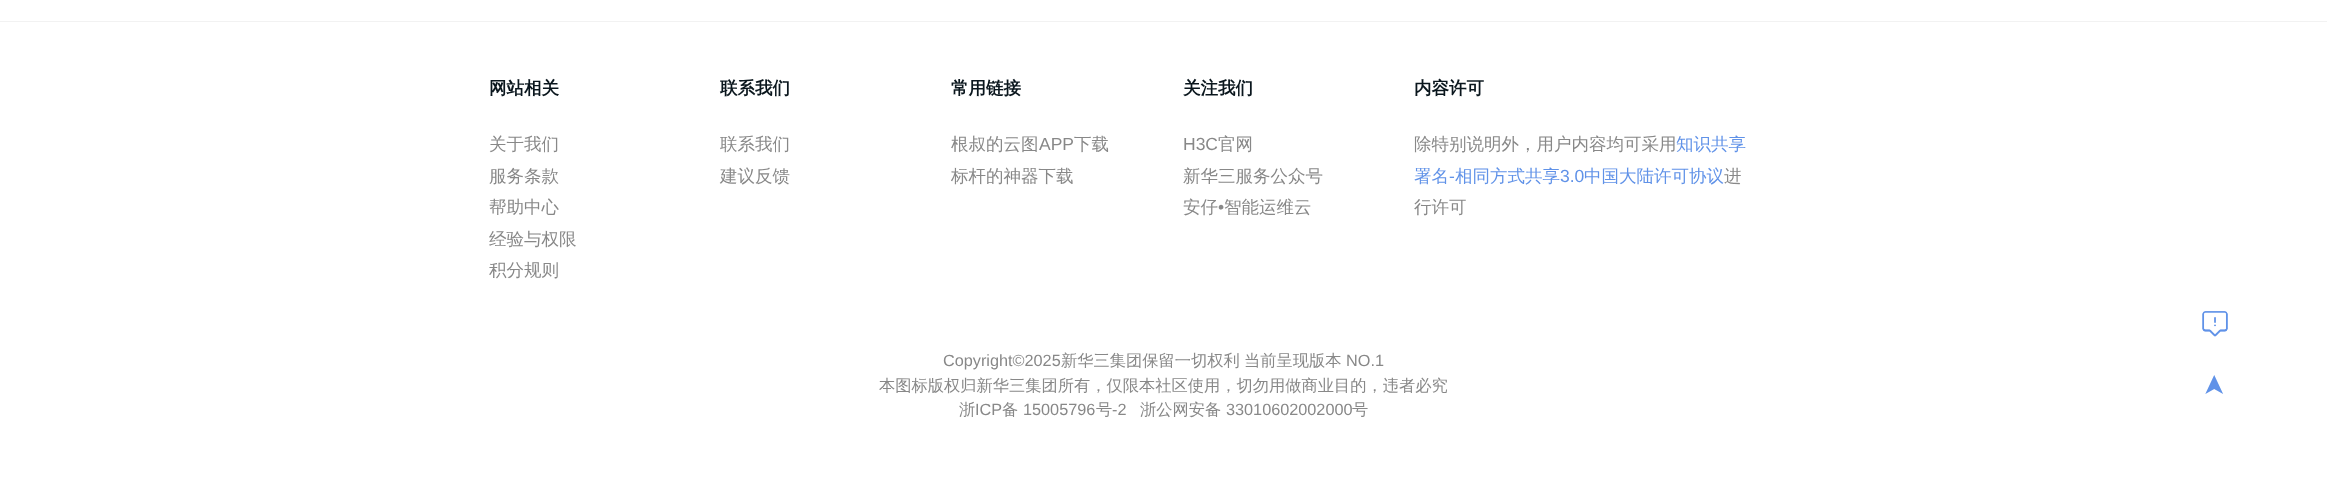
<!DOCTYPE html>
<meta charset="utf-8">
<style>body { margin: 0 } canvas { display: block }</style>
<canvas id="canvas" width="2327" height="484"></canvas>
<img id="img1" src="images/1.png" hidden>
<script>
window.onload = function () {
    const canvas = document.getElementById('canvas');
    const context = canvas.getContext('2d');
    context.miterLimit = 4;
    context.fontKerning = 'normal';

    context.fillStyle = 'rgb(255, 255, 255)';
    context.fillRect(0, 0, 2327, 484);
    context.fillStyle = 'rgb(242, 242, 242)';
    context.fillRect(0, 21, 2327, 1);
    context.drawImage(document.getElementById('img1'), 2202, 311, 26, 26);
    context.font = 'bold 17.5px WenQuanYi Zen Hei';
    context.fillStyle = 'rgb(10, 22, 29)';
    context.fillText('网站相关', 489, 94);
    context.font = '500 17.5px WenQuanYi Zen Hei';
    context.fillStyle = 'rgb(136, 136, 136)';
    context.fillText('关于我们', 489, 150);
    context.fillText('服务条款', 489, 182);
    context.fillText('帮助中心', 489, 213);
    context.fillText('经验与权限', 489, 245);
    context.fillText('积分规则', 489, 276);
    context.font = 'bold 17.5px WenQuanYi Zen Hei';
    context.fillStyle = 'rgb(10, 22, 29)';
    context.fillText('联系我们', 720, 94);
    context.font = '500 17.5px WenQuanYi Zen Hei';
    context.fillStyle = 'rgb(136, 136, 136)';
    context.fillText('联系我们', 720, 150);
    context.fillText('建议反馈', 720, 182);
    context.font = 'bold 17.5px WenQuanYi Zen Hei';
    context.fillStyle = 'rgb(10, 22, 29)';
    context.fillText('常用链接', 951, 94);
    context.font = '500 17.5px WenQuanYi Zen Hei';
    context.fillStyle = 'rgb(136, 136, 136)';
    context.fillText('根叔的云图', 951, 150);
    context.font = '17.5px Liberation Sans';
    context.fillText('APP', 1039, 150);
    context.font = '500 17.5px WenQuanYi Zen Hei';
    context.fillText('下载', 1074, 150);
    context.fillText('标杆的神器下载', 951, 182);
    context.font = 'bold 17.5px WenQuanYi Zen Hei';
    context.fillStyle = 'rgb(10, 22, 29)';
    context.fillText('关注我们', 1183, 94);
    context.font = '17.5px Liberation Sans';
    context.fillStyle = 'rgb(136, 136, 136)';
    context.fillText('H3C', 1183, 150);
    context.font = '500 17.5px WenQuanYi Zen Hei';
    context.fillText('官网', 1218, 150);
    context.fillText('新华三服务公众号', 1183, 182);
    context.fillText('安仔', 1183, 213);
    context.font = '17.5px Liberation Sans';
    context.fillText('•', 1218, 213);
    context.font = '500 17.5px WenQuanYi Zen Hei';
    context.fillText('智能运维云', 1224, 213);
    context.font = 'bold 17.5px WenQuanYi Zen Hei';
    context.fillStyle = 'rgb(10, 22, 29)';
    context.fillText('内容许可', 1414, 94);
    context.font = '500 17.5px WenQuanYi Zen Hei';
    context.fillStyle = 'rgb(136, 136, 136)';
    context.fillText('除特别说明外，用户内容均可采用', 1414, 150);
    context.fillStyle = 'rgb(96, 146, 232)';
    context.fillText('知识共享', 1676, 150);
    context.fillText('署名', 1414, 182);
    context.font = '17.5px Liberation Sans';
    context.fillText('-', 1449, 182);
    context.font = '500 17.5px WenQuanYi Zen Hei';
    context.fillText('相同方式共享', 1455, 182);
    context.font = '17.5px Liberation Sans';
    context.fillText('3.0', 1560, 182);
    context.font = '500 17.5px WenQuanYi Zen Hei';
    context.fillText('中国大陆许可协议', 1584, 182);
    context.fillStyle = 'rgb(136, 136, 136)';
    context.fillText('进', 1724, 182);
    context.fillText('行许可', 1414, 213);
    context.font = '16.25px Liberation Sans';
    context.fillText('Copyright©2025', 943, 366);
    context.font = '500 16.25px WenQuanYi Zen Hei';
    context.fillText('新华三集团保留一切权利', 1061, 366);
    context.fillText('当前呈现版本', 1244, 366);
    context.font = '16.25px Liberation Sans';
    context.fillText('NO.1', 1346, 366);
    context.font = '500 16.25px WenQuanYi Zen Hei';
    context.fillText('本图标版权归新华三集团所有，仅限本社区使用，切勿用做商业目的，违者必究', 879, 391);
    context.fillText('浙', 959, 415);
    context.font = '16.25px Liberation Sans';
    context.fillText('ICP', 975, 415);
    context.font = '500 16.25px WenQuanYi Zen Hei';
    context.fillText('备', 1002, 415);
    context.font = '16.25px Liberation Sans';
    context.fillText('15005796', 1023, 415);
    context.font = '500 16.25px WenQuanYi Zen Hei';
    context.fillText('号', 1096, 415);
    context.font = '16.25px Liberation Sans';
    context.fillText('-2', 1112, 415);
    context.font = '500 16.25px WenQuanYi Zen Hei';
    context.fillText('浙公网安备', 1140, 415);
    context.font = '16.25px Liberation Sans';
    context.fillText('33010602002000', 1226, 415);
    context.font = '500 16.25px WenQuanYi Zen Hei';
    context.fillText('号', 1352, 415);
    context.font = '28px DejaVu Sans';
    context.fillStyle = 'rgb(96, 146, 232)';
    context.save();
    context.translate(2223, 397);
    context.rotate(-90 * Math.PI / 180);
    context.fillText('➤', 0, 0);
    context.restore();
};
</script>
